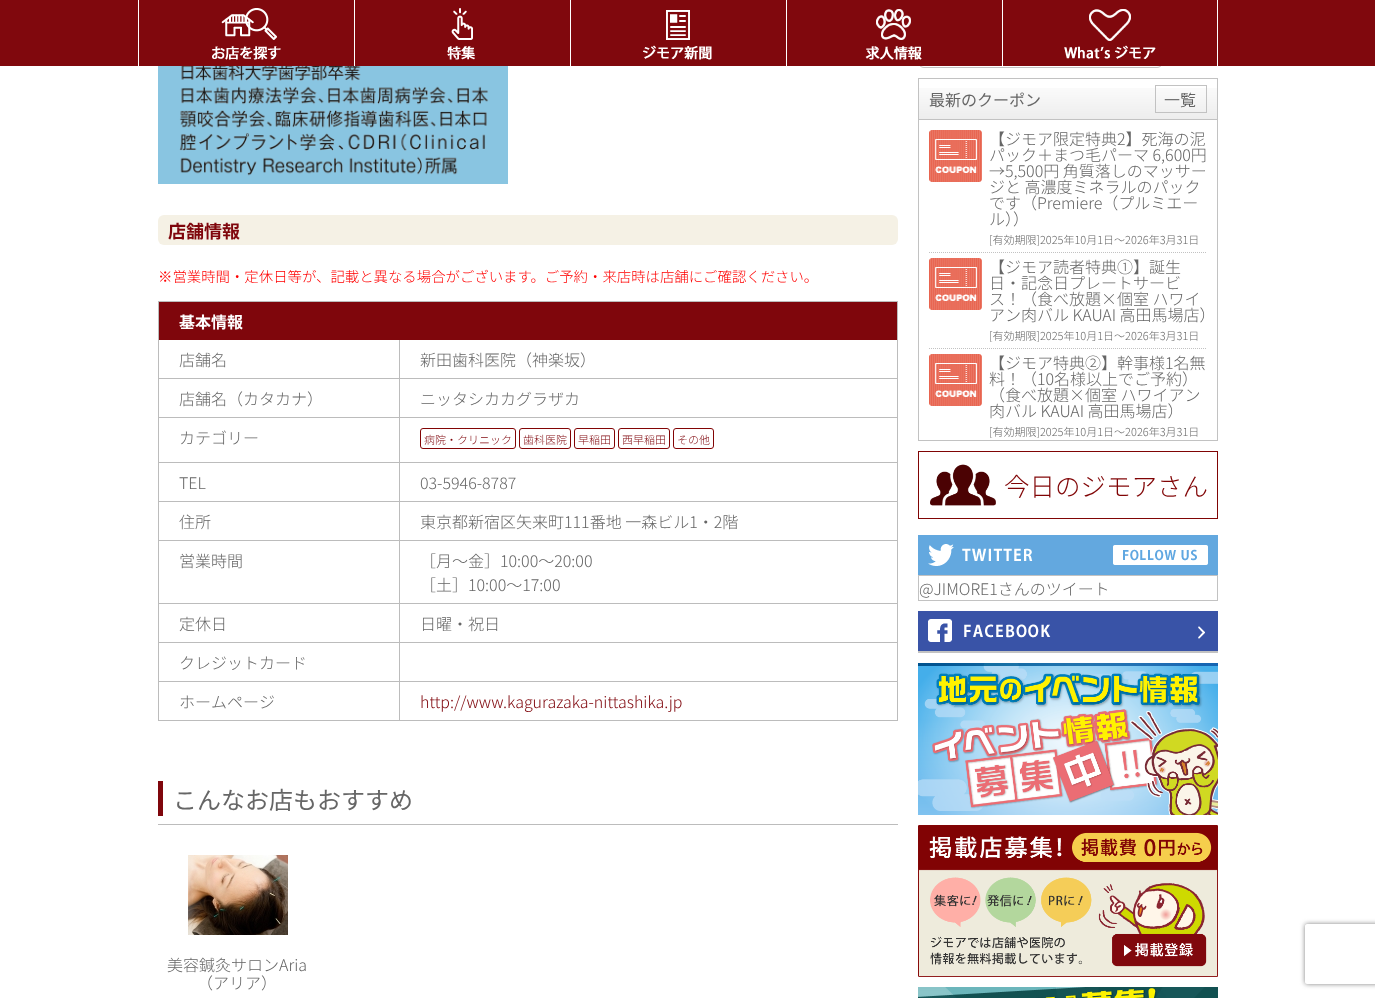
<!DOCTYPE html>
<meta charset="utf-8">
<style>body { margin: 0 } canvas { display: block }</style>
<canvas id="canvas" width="1375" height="998"></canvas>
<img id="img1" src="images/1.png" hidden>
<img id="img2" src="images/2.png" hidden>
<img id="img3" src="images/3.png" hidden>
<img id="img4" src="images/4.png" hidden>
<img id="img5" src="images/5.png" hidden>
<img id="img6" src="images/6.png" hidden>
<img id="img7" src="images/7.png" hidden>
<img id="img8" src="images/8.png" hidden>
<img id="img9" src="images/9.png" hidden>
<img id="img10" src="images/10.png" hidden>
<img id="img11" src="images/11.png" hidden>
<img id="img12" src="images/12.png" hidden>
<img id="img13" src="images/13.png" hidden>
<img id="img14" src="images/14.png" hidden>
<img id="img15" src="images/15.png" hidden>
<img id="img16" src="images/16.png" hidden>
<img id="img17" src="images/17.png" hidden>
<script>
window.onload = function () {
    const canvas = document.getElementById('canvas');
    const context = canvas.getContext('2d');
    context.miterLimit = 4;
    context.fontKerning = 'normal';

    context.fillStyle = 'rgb(255, 255, 255)';
    context.fillRect(0, 0, 1375, 998);
    context.beginPath();
    context.roundRect(918.5, 38.5, 244, 29, 5.5);
    context.strokeStyle = 'rgb(194, 194, 194)';
    context.stroke();
    context.fillStyle = 'rgb(128, 8, 13)';
    context.fillRect(0, 0, 1375, 66);
    context.fillStyle = 'rgb(255, 255, 255)';
    context.fillRect(138, 0, 1, 66);
    context.drawImage(document.getElementById('img1'), 212, 8, 69, 52);
    context.fillRect(354, 0, 1, 66);
    context.drawImage(document.getElementById('img2'), 447, 8, 28, 52);
    context.fillRect(570, 0, 1, 66);
    context.drawImage(document.getElementById('img3'), 643, 10, 69, 50);
    context.fillRect(786, 0, 1, 66);
    context.drawImage(document.getElementById('img4'), 865, 9, 57, 51);
    context.fillRect(1002, 0, 1, 66);
    context.drawImage(document.getElementById('img5'), 1064, 9, 92, 50);
    context.fillRect(1217, 0, 1, 66);
    context.drawImage(document.getElementById('img6'), 158, 66, 350, 118);
    context.fillStyle = 'rgb(245, 241, 229)';
    context.beginPath();
    context.roundRect(158, 215, 740, 30, 6);
    context.fill();
    context.fillStyle = 'rgb(188, 188, 188)';
    context.fillRect(158, 301, 740, 1);
    context.fillRect(897, 301, 1, 420);
    context.fillRect(158, 301, 1, 420);
    context.fillStyle = 'rgb(127, 6, 12)';
    context.fillRect(159, 302, 738, 38);
    context.fillStyle = 'rgb(188, 188, 188)';
    context.fillRect(159, 378, 738, 1);
    context.fillRect(399, 340, 1, 38);
    context.fillRect(159, 417, 738, 1);
    context.fillRect(399, 379, 1, 38);
    context.fillRect(159, 462, 738, 1);
    context.fillRect(399, 418, 1, 44);
    context.beginPath();
    context.roundRect(420.5, 428.5, 95, 20, 2.5);
    context.strokeStyle = 'rgb(130, 4, 5)';
    context.stroke();
    context.beginPath();
    context.roundRect(519.5, 428.5, 51, 20, 2.5);
    context.stroke();
    context.beginPath();
    context.roundRect(574.5, 428.5, 40, 20, 2.5);
    context.stroke();
    context.beginPath();
    context.roundRect(618.5, 428.5, 51, 20, 2.5);
    context.stroke();
    context.beginPath();
    context.roundRect(673.5, 428.5, 40, 20, 2.5);
    context.stroke();
    context.fillRect(159, 501, 738, 1);
    context.fillRect(399, 463, 1, 38);
    context.fillRect(159, 540, 738, 1);
    context.fillRect(399, 502, 1, 38);
    context.fillRect(159, 603, 738, 1);
    context.fillRect(399, 541, 1, 62);
    context.fillRect(159, 642, 738, 1);
    context.fillRect(399, 604, 1, 38);
    context.fillRect(159, 681, 738, 1);
    context.fillRect(399, 643, 1, 38);
    context.fillRect(159, 720, 738, 1);
    context.fillRect(399, 682, 1, 38);
    context.fillStyle = 'rgb(127, 6, 12)';
    context.fillRect(158, 781, 5, 35);
    context.fillStyle = 'rgb(188, 188, 188)';
    context.fillRect(158, 824, 740, 1);
    context.drawImage(document.getElementById('img7'), 188, 855, 100, 80);
    context.drawImage(document.getElementById('img8'), 919, 88, 298, 31);
    context.fillStyle = 'rgb(194, 194, 194)';
    context.fillRect(918, 78, 300, 1);
    context.fillRect(1217, 78, 1, 41);
    context.fillRect(918, 78, 1, 41);
    context.strokeStyle = 'rgb(194, 194, 194)';
    context.strokeRect(1155.5, 85.5, 51, 27);
    context.strokeRect(918.5, 119.5, 299, 321);
    context.drawImage(document.getElementById('img9'), 929, 130, 53, 52);
    context.beginPath();
    context.moveTo(929, 252.5);
    context.lineTo(1207, 252.5);
    context.setLineDash([1, 1]);
    context.stroke();
    context.drawImage(document.getElementById('img9'), 929, 258, 53, 52);
    context.beginPath();
    context.moveTo(929, 348.5);
    context.lineTo(1207, 348.5);
    context.stroke();
    context.drawImage(document.getElementById('img9'), 929, 354, 53, 52);
    context.strokeStyle = 'rgb(128, 4, 5)';
    context.setLineDash([]);
    context.strokeRect(918.5, 451.5, 299, 67);
    context.drawImage(document.getElementById('img10'), 930, 464, 66, 42);
    context.fillStyle = 'rgb(99, 168, 223)';
    context.fillRect(918, 535, 300, 40);
    context.drawImage(document.getElementById('img11'), 928, 544, 105, 22);
    context.drawImage(document.getElementById('img12'), 1113, 545, 95, 20);
    context.strokeStyle = 'rgb(194, 194, 194)';
    context.strokeRect(918.5, 575.5, 299, 25);
    context.fillStyle = 'rgb(57, 83, 167)';
    context.fillRect(918, 611, 300, 40);
    context.drawImage(document.getElementById('img13'), 1198, 626, 7, 13);
    context.drawImage(document.getElementById('img14'), 928, 619, 123, 23);
    context.fillStyle = 'rgb(194, 194, 194)';
    context.fillRect(918, 651, 300, 2);
    context.drawImage(document.getElementById('img15'), 918, 663, 300, 152);
    context.drawImage(document.getElementById('img16'), 918, 825, 300, 152);
    context.drawImage(document.getElementById('img17'), 918, 987, 300, 11);
    context.save();
    context.beginPath();
    context.moveTo(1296, 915);
    context.lineTo(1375, 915);
    context.lineTo(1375, 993);
    context.lineTo(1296, 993);
    context.closePath();
    context.moveTo(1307, 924);
    context.lineTo(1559, 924);
    context.bezierCurveTo(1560, 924, 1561, 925, 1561, 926);
    context.lineTo(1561, 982);
    context.bezierCurveTo(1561, 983, 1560, 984, 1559, 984);
    context.lineTo(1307, 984);
    context.bezierCurveTo(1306, 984, 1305, 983, 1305, 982);
    context.lineTo(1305, 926);
    context.bezierCurveTo(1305, 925, 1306, 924, 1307, 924);
    context.closePath();
    context.clip('evenodd');
    context.fillStyle = 'rgb(128, 128, 128)';
    context.filter = 'blur(2.5px)';
    context.beginPath();
    context.roundRect(1305, 924, 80, 60, 2);
    context.fill();
    context.filter = 'none';
    context.restore();
    context.font = 'bold 18px Noto Sans JP';
    context.fillStyle = 'rgb(127, 6, 12)';
    context.fillText('店舗情報', 168, 238);
    context.font = '300 14.4px Noto Sans JP';
    context.fillStyle = 'rgb(255, 0, 0)';
    context.fillText('※営業時間・定休日等が、記載と異なる場合がございます。ご予約・来店時は店舗にご確認ください。', 158, 282);
    context.font = 'bold 16px Noto Sans JP';
    context.fillStyle = 'rgb(255, 255, 255)';
    context.fillText('基本情報', 179, 328);
    context.font = '300 16px Noto Sans JP';
    context.fillStyle = 'rgb(102, 102, 102)';
    context.fillText('店舗名', 179, 366);
    context.fillText('新田歯科医院（神楽坂）', 420, 366);
    context.fillText('店舗名（カタカナ）', 179, 405);
    context.fillText('ニッタシカカグラザカ', 420, 405);
    context.fillText('カテゴリー', 179, 444);
    context.font = '300 11px Noto Sans JP';
    context.fillStyle = 'rgb(127, 6, 12)';
    context.fillText('病院・クリニック', 424, 444);
    context.fillText('歯科医院', 523, 444);
    context.fillText('早稲田', 578, 444);
    context.fillText('西早稲田', 622, 444);
    context.fillText('その他', 677, 444);
    context.font = '300 16px Noto Sans JP';
    context.fillStyle = 'rgb(102, 102, 102)';
    context.fillText('TEL', 179, 489);
    context.fillText('03-5946-8787', 420, 489);
    context.fillText('住所', 179, 528);
    context.fillText('東京都新宿区矢来町111番地 一森ビル1・2階', 420, 528);
    context.fillText('営業時間', 179, 567);
    context.fillText('［月〜金］10:00～20:00', 420, 567);
    context.fillText('［土］10:00～17:00', 420, 591);
    context.fillText('定休日', 179, 630);
    context.fillText('日曜・祝日', 420, 630);
    context.fillText('クレジットカード', 179, 669);
    context.fillText('ホームページ', 179, 708);
    context.fillStyle = 'rgb(127, 6, 12)';
    context.fillText('http://www.kagurazaka-nittashika.jp', 420, 708);
    context.font = '24px Noto Sans JP';
    context.fillStyle = 'rgb(102, 102, 102)';
    context.fillText('こんなお店もおすすめ', 173, 809);
    context.font = '300 16px Noto Sans JP';
    context.fillText('美容鍼灸サロンAria', 167, 971);
    context.fillText('（アリア）', 197, 989);
    context.font = '16px Noto Sans JP';
    context.fillText('最新のクーポン', 929, 106);
    context.font = '300 16px Noto Sans JP';
    context.fillStyle = 'rgb(51, 51, 51)';
    context.fillText('一覧', 1164, 106);
    context.fillStyle = 'rgb(102, 102, 102)';
    context.fillText('【ジモア限定特典2】死海の泥', 989, 145);
    context.fillText('パック＋まつ毛パーマ 6,600円', 989, 161);
    context.fillText('→5,500円 角質落しのマッサー', 989, 177);
    context.fillText('ジと 高濃度ミネラルのパック', 989, 193);
    context.fillText('です（Premiere（プルミエー', 989, 209);
    context.fillText('ル））', 989, 225);
    context.font = '300 11px Noto Sans JP';
    context.fillText('[有効期限]2025年10月1日〜2026年3月31日', 989, 244);
    context.font = '300 16px Noto Sans JP';
    context.fillText('【ジモア読者特典①】誕生', 989, 273);
    context.fillText('日・記念日プレートサービ', 989, 289);
    context.fillText('ス！（食べ放題×個室 ハワイ', 989, 305);
    context.fillText('アン肉バル KAUAI 高田馬場店）', 989, 321);
    context.font = '300 11px Noto Sans JP';
    context.fillText('[有効期限]2025年10月1日〜2026年3月31日', 989, 340);
    context.font = '300 16px Noto Sans JP';
    context.fillText('【ジモア特典②】幹事様1名無', 989, 369);
    context.fillText('料！（10名様以上でご予約）', 989, 385);
    context.fillText('（食べ放題×個室 ハワイアン', 989, 401);
    context.fillText('肉バル KAUAI 高田馬場店）', 989, 417);
    context.font = '300 11px Noto Sans JP';
    context.fillText('[有効期限]2025年10月1日〜2026年3月31日', 989, 436);
    context.font = '300 25.5px Noto Sans JP';
    context.fillStyle = 'rgb(128, 4, 5)';
    context.fillText('今日のジモアさん', 1004, 496);
    context.font = '300 16px Noto Sans JP';
    context.fillStyle = 'rgb(102, 102, 102)';
    context.fillText('@JIMORE1さんのツイート', 919, 595);
};
</script>
